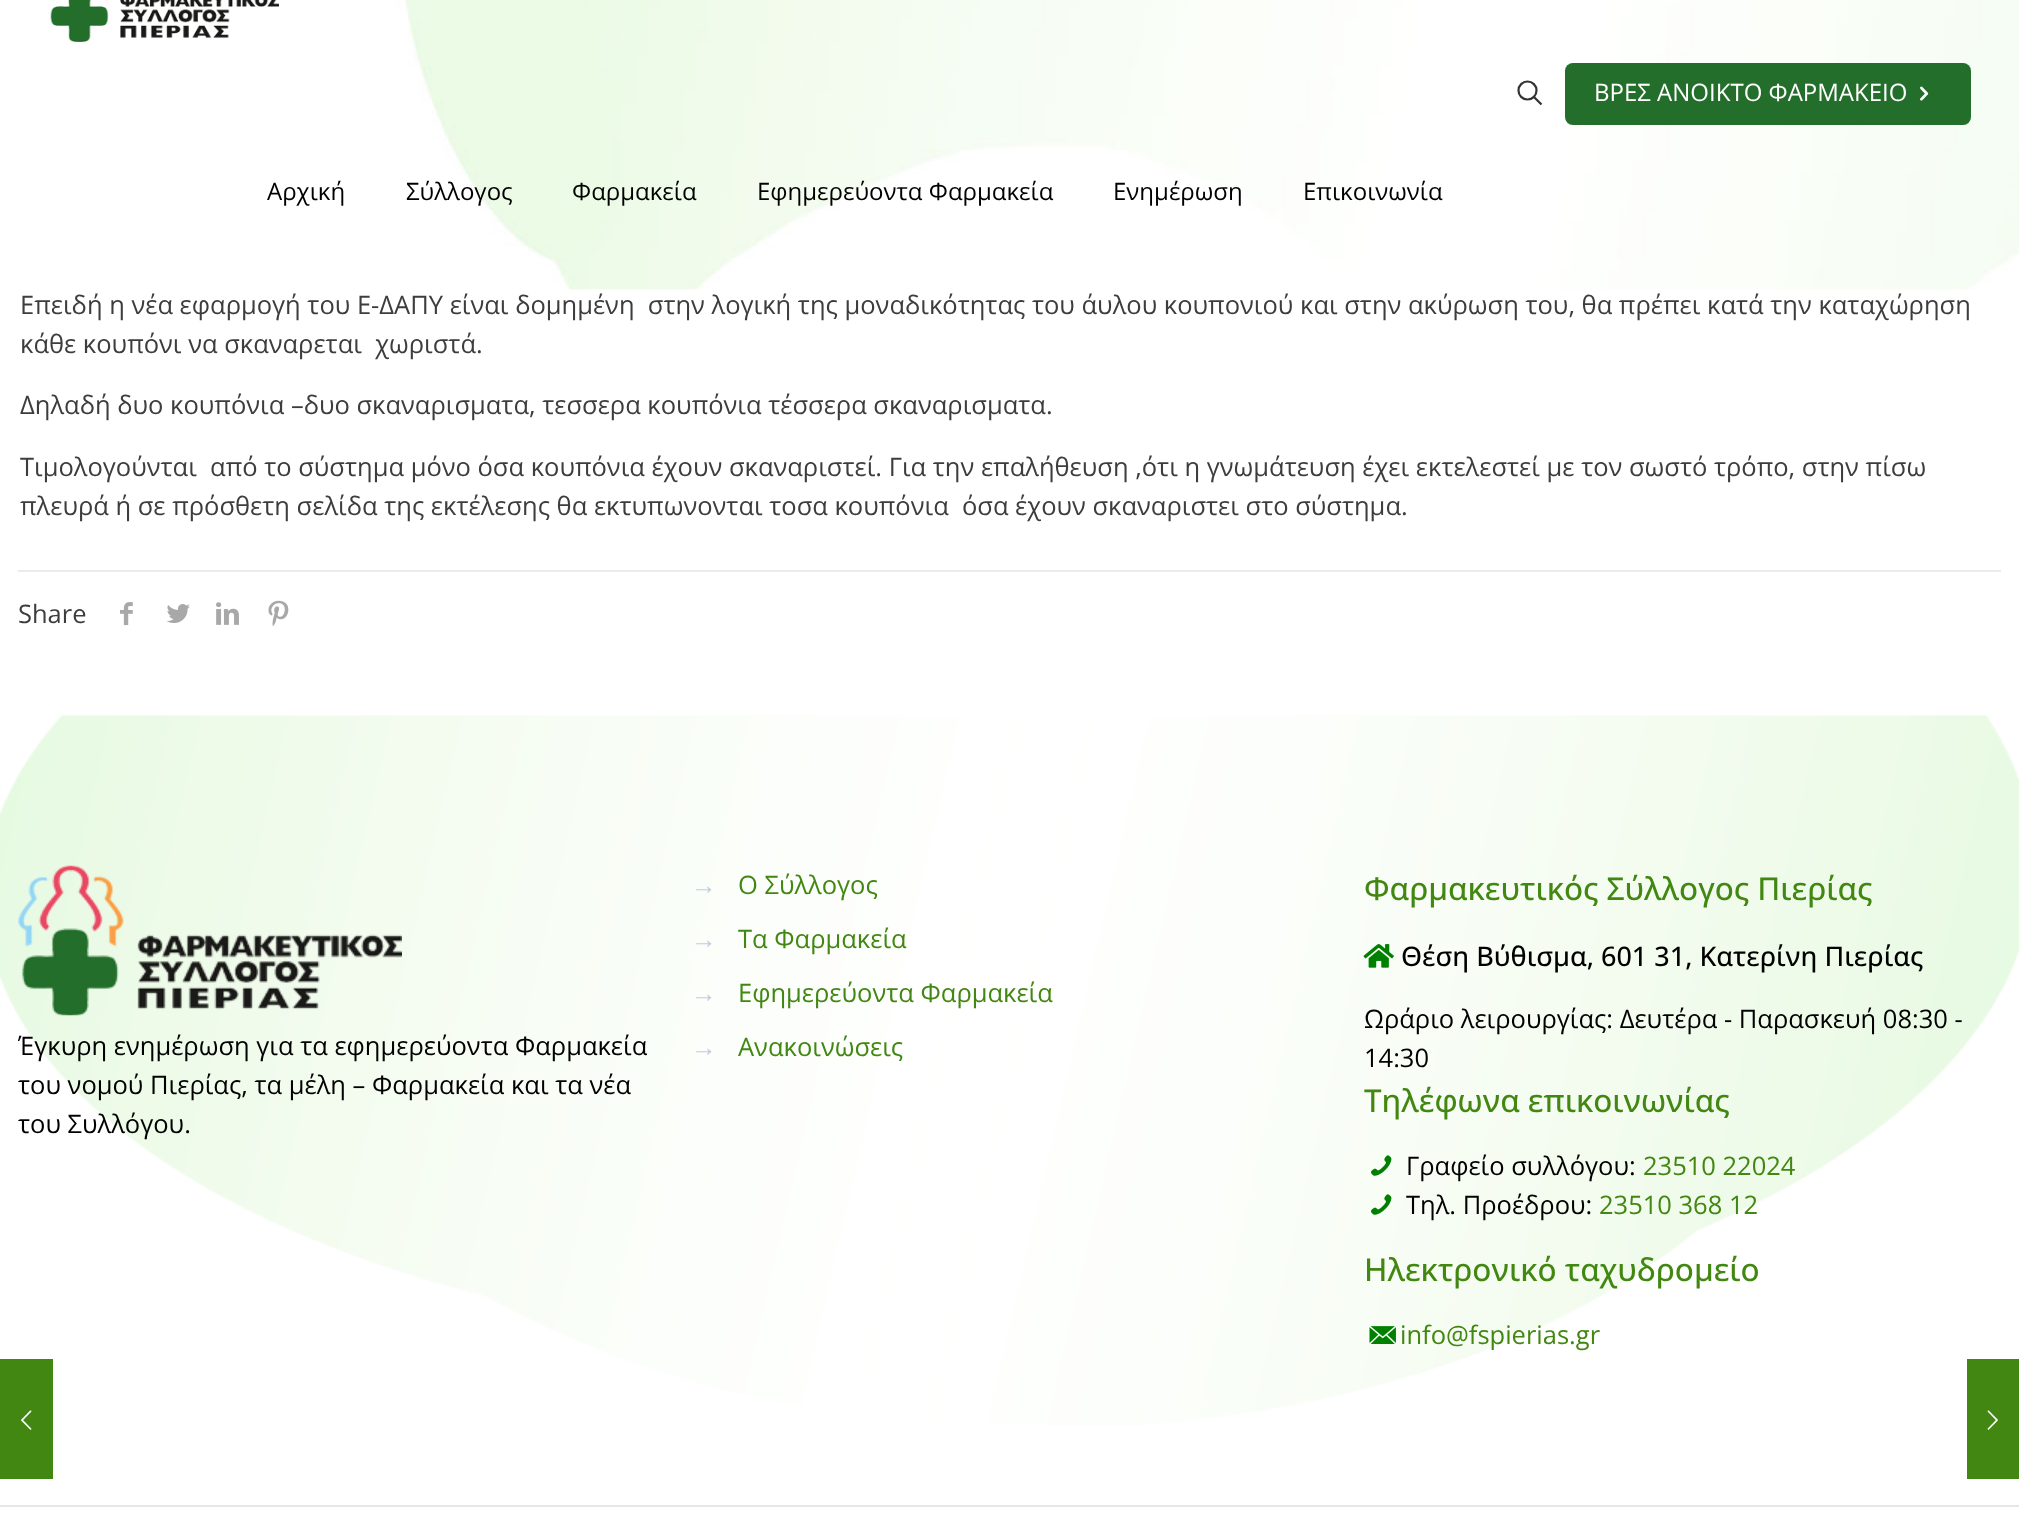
<!DOCTYPE html>
<meta charset="utf-8">
<style>body { margin: 0 } canvas { display: block }</style>
<canvas id="canvas" width="2019" height="1538"></canvas>
<img id="img1" src="images/1.png" hidden>
<img id="img2" src="images/2.png" hidden>
<img id="img3" src="images/3.png" hidden>
<img id="img4" src="images/4.png" hidden>
<img id="img5" src="images/5.png" hidden>
<img id="img6" src="images/6.png" hidden>
<img id="img7" src="images/7.png" hidden>
<img id="img8" src="images/8.png" hidden>
<img id="img9" src="images/9.png" hidden>
<img id="img10" src="images/10.png" hidden>
<img id="img11" src="images/11.png" hidden>
<img id="img12" src="images/12.png" hidden>
<img id="img13" src="images/13.png" hidden>
<img id="img14" src="images/14.png" hidden>
<img id="img15" src="images/15.png" hidden>
<script>
window.onload = function () {
    const canvas = document.getElementById('canvas');
    const context = canvas.getContext('2d');
    context.miterLimit = 4;
    context.fontKerning = 'normal';

    context.fillStyle = 'rgb(255, 255, 255)';
    context.fillRect(0, 0, 2019, 1538);
    context.drawImage(document.getElementById('img1'), 20, 0, 1999, 290);
    context.beginPath();
    context.arc(1527.5, 90.5, 9, 0, 2 * Math.PI);
    context.strokeStyle = 'rgb(51, 51, 51)';
    context.lineWidth = 2.2;
    context.stroke();
    context.beginPath();
    context.moveTo(1534, 97);
    context.lineTo(1541.5, 104.5);
    context.stroke();
    context.fillStyle = 'rgb(34, 110, 42)';
    context.beginPath();
    context.roundRect(1565, 63, 406, 62, 8);
    context.fill();
    context.drawImage(document.getElementById('img2'), 1920, 86, 9, 15);
    context.drawImage(document.getElementById('img3'), 50, 0, 229, 42);
    context.fillStyle = 'rgb(235, 235, 235)';
    context.fillRect(18, 570, 1983, 2);
    context.drawImage(document.getElementById('img4'), 120, 602, 13, 24);
    context.drawImage(document.getElementById('img5'), 167, 604, 23, 19);
    context.drawImage(document.getElementById('img6'), 216, 602, 23, 23);
    context.drawImage(document.getElementById('img7'), 268, 600, 21, 27);
    context.drawImage(document.getElementById('img8'), 0, 715, 2019, 710);
    context.drawImage(document.getElementById('img9'), 18, 865, 384, 151);
    context.drawImage(document.getElementById('img10'), 1363, 944, 31, 24);
    context.drawImage(document.getElementById('img11'), 1371, 1155, 21, 21);
    context.drawImage(document.getElementById('img12'), 1371, 1194, 21, 21);
    context.drawImage(document.getElementById('img13'), 1369, 1326, 27, 18);
    context.fillStyle = 'rgb(230, 230, 230)';
    context.fillRect(0, 1505, 2019, 2);
    context.fillStyle = 'rgb(66, 135, 17)';
    context.fillRect(0, 1359, 53, 120);
    context.drawImage(document.getElementById('img14'), 21, 1410, 11, 20);
    context.fillRect(1967, 1359, 52, 120);
    context.drawImage(document.getElementById('img15'), 1987, 1410, 11, 20);
    context.font = '24px Open Sans';
    context.fillStyle = 'rgb(255, 255, 255)';
    context.fillText('ΒΡΕΣ ΑΝΟΙΚΤΟ ΦΑΡΜΑΚΕΙΟ', 1594, 101);
    context.fillStyle = 'rgb(0, 0, 0)';
    context.fillText('Αρχική', 267, 200);
    context.fillText('Σύλλογος', 406, 200);
    context.fillText('Φαρμακεία', 572, 200);
    context.fillText('Εφημερεύοντα Φαρμακεία', 757, 200);
    context.fillText('Ενημέρωση', 1113, 200);
    context.fillText('Επικοινωνία', 1303, 200);
    context.font = '25.5px Open Sans';
    context.fillStyle = 'rgb(61, 61, 61)';
    context.fillText('Επειδή η νέα εφαρμογή του Ε-ΔΑΠΥ είναι δομημένη  στην λογική της μοναδικότητας του άυλου κουπονιού και στην ακύρωση του, θα πρέπει κατά την καταχώρηση', 20, 314);
    context.fillText('κάθε κουπόνι να σκαναρεται  χωριστά.', 20, 353);
    context.fillText('Δηλαδή δυο κουπόνια –δυο σκαναρισματα, τεσσερα κουπόνια τέσσερα σκαναρισματα.', 20, 414);
    context.fillText('Τιμολογούνται  από το σύστημα μόνο όσα κουπόνια έχουν σκαναριστεί. Για την επαλήθευση ,ότι η γνωμάτευση έχει εκτελεστεί με τον σωστό τρόπο, στην πίσω', 20, 476);
    context.fillText('πλευρά ή σε πρόσθετη σελίδα της εκτέλεσης θα εκτυπωνονται τοσα κουπόνια  όσα έχουν σκαναριστει στο σύστημα.', 20, 515);
    context.fillText('Share', 18, 623);
    context.fillStyle = 'rgb(0, 0, 0)';
    context.fillText('Έγκυρη ενημέρωση για τα εφημερεύοντα Φαρμακεία', 18, 1055);
    context.fillText('του νομού Πιερίας, τα μέλη – Φαρμακεία και τα νέα', 18, 1094);
    context.fillText('του Συλλόγου.', 18, 1133);
    context.font = '25.5px Liberation Sans';
    context.fillStyle = 'rgb(195, 203, 225)';
    context.fillText('→', 691, 894);
    context.font = '25.5px Open Sans';
    context.fillStyle = 'rgb(66, 135, 17)';
    context.fillText('Ο Σύλλογος', 738, 894);
    context.font = '25.5px Liberation Sans';
    context.fillStyle = 'rgb(195, 203, 225)';
    context.fillText('→', 691, 948);
    context.font = '25.5px Open Sans';
    context.fillStyle = 'rgb(66, 135, 17)';
    context.fillText('Τα Φαρμακεία', 738, 948);
    context.font = '25.5px Liberation Sans';
    context.fillStyle = 'rgb(195, 203, 225)';
    context.fillText('→', 691, 1002);
    context.font = '25.5px Open Sans';
    context.fillStyle = 'rgb(66, 135, 17)';
    context.fillText('Εφημερεύοντα Φαρμακεία', 738, 1002);
    context.font = '25.5px Liberation Sans';
    context.fillStyle = 'rgb(195, 203, 225)';
    context.fillText('→', 691, 1056);
    context.font = '25.5px Open Sans';
    context.fillStyle = 'rgb(66, 135, 17)';
    context.fillText('Ανακοινώσεις', 738, 1056);
    context.font = '500 31.5px Open Sans';
    context.fillText('Φαρμακευτικός Σύλλογος Πιερίας', 1364, 900);
    context.font = '500 27px Open Sans';
    context.fillStyle = 'rgb(0, 0, 0)';
    context.fillText('Θέση Βύθισμα, 601 31, Κατερίνη Πιερίας', 1401, 966);
    context.font = '25.5px Open Sans';
    context.fillText('Ωράριο λειρουργίας: Δευτέρα - Παρασκευή 08:30 -', 1364, 1028);
    context.fillText('14:30', 1364, 1067);
    context.font = '500 31.5px Open Sans';
    context.fillStyle = 'rgb(66, 135, 17)';
    context.fillText('Τηλέφωνα επικοινωνίας', 1364, 1112);
    context.font = '25.5px Open Sans';
    context.fillStyle = 'rgb(0, 0, 0)';
    context.fillText('Γραφείο συλλόγου:', 1406, 1175);
    context.fillStyle = 'rgb(66, 135, 17)';
    context.fillText('23510 22024', 1643, 1175);
    context.fillStyle = 'rgb(0, 0, 0)';
    context.fillText('Τηλ. Προέδρου:', 1406, 1214);
    context.fillStyle = 'rgb(66, 135, 17)';
    context.fillText('23510 368 12', 1599, 1214);
    context.font = '500 31.5px Open Sans';
    context.fillText('Ηλεκτρονικό ταχυδρομείο', 1364, 1281);
    context.font = '25.5px Open Sans';
    context.fillText('info@fspierias.gr', 1400, 1344);
};
</script>
